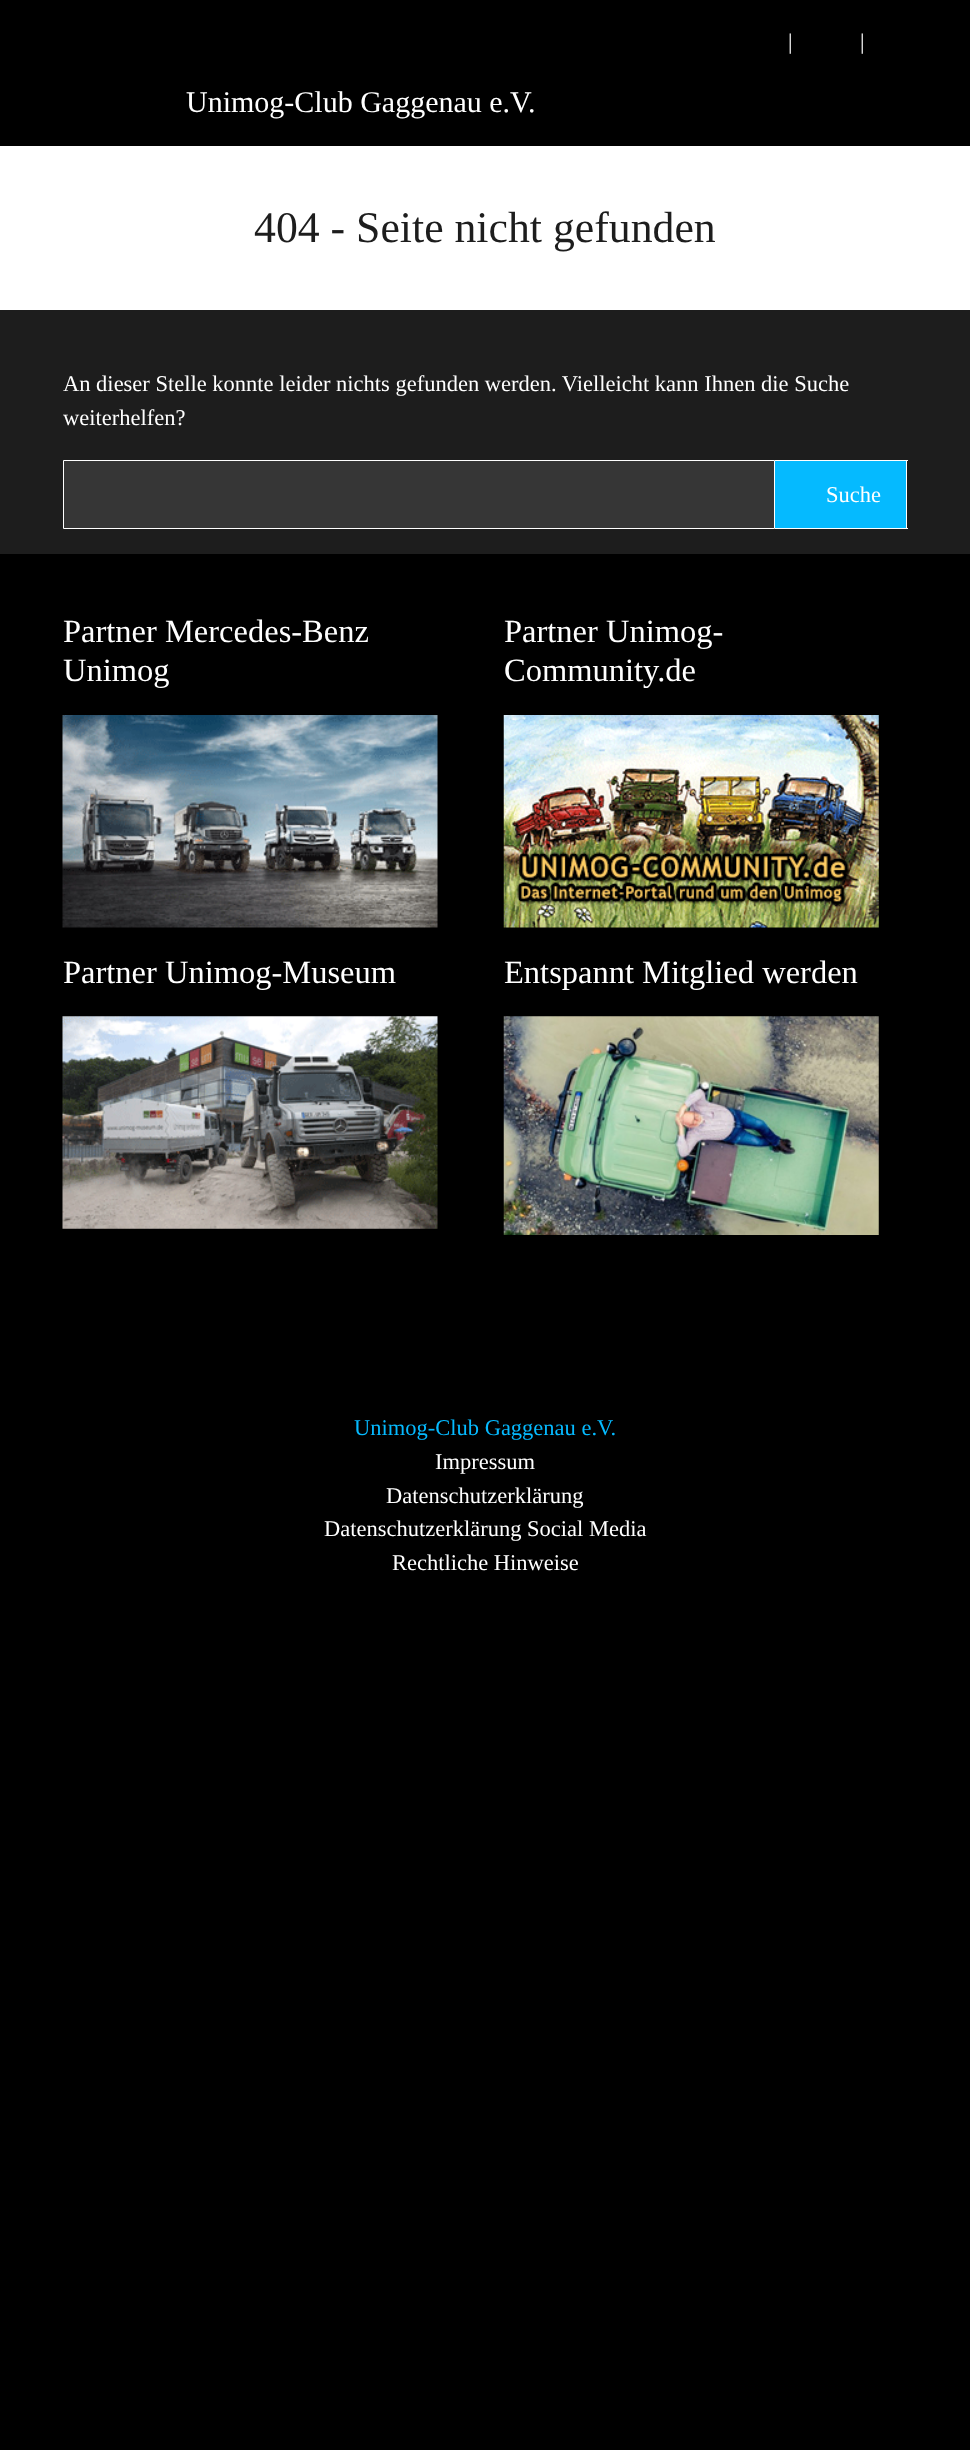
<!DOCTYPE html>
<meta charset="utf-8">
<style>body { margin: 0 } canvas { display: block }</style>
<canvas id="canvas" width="970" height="2450"></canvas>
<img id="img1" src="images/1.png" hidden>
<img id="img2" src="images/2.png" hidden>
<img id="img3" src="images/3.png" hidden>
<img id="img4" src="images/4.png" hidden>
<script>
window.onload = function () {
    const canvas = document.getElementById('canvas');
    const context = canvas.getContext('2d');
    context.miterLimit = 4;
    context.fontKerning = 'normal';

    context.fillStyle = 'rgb(0, 0, 0)';
    context.fillRect(0, 0, 970, 2450);
    context.fillStyle = 'rgb(29, 29, 29)';
    context.fillRect(0, 310, 970, 244);
    context.fillStyle = 'rgb(255, 255, 255)';
    context.fillRect(0, 146, 970, 164);
    context.fillStyle = 'rgb(54, 54, 54)';
    context.beginPath();
    context.rect(63.5, 460.5, 711, 68);
    context.fill();
    context.strokeStyle = 'rgb(255, 255, 255)';
    context.stroke();
    context.fillStyle = 'rgb(5, 186, 255)';
    context.fillRect(775, 461, 131, 67);
    context.fillStyle = 'rgb(255, 255, 255)';
    context.fillRect(775, 460, 133, 1);
    context.fillRect(906, 460, 1, 69);
    context.fillRect(775, 528, 133, 1);
    context.drawImage(document.getElementById('img1'), 62, 715, 376, 213);
    context.drawImage(document.getElementById('img2'), 503, 715, 376, 213);
    context.drawImage(document.getElementById('img3'), 62, 1016, 376, 213);
    context.drawImage(document.getElementById('img4'), 503, 1016, 376, 219);
    context.font = '22.5px Liberation Serif';
    context.fillText('|', 788, 49);
    context.fillText('|', 860, 49);
    context.font = '30px Liberation Serif';
    context.fillText('Unimog-Club Gaggenau e.V.', 186, 112);
    context.font = '43.75px Liberation Serif';
    context.fillStyle = 'rgb(29, 29, 29)';
    context.fillText('404 - Seite nicht gefunden', 254, 242);
    context.font = '22.5px Liberation Serif';
    context.fillStyle = 'rgb(255, 255, 255)';
    context.fillText('An dieser Stelle konnte leider nichts gefunden werden. Vielleicht kann Ihnen die Suche', 63, 391);
    context.fillText('weiterhelfen?', 63, 425);
    context.fillText('Suche', 826, 502);
    context.font = '32.5px Liberation Serif';
    context.fillText('Partner Mercedes-Benz', 63, 642);
    context.fillText('Unimog', 63, 681);
    context.fillText('Partner Unimog-', 504, 642);
    context.fillText('Community.de', 504, 681);
    context.fillText('Partner Unimog-Museum', 63, 983);
    context.fillText('Entspannt Mitglied werden', 504, 983);
    context.font = '22.5px Liberation Serif';
    context.fillStyle = 'rgb(5, 186, 255)';
    context.fillText('Unimog-Club Gaggenau e.V.', 354, 1435);
    context.fillStyle = 'rgb(255, 255, 255)';
    context.fillText('Impressum', 435, 1469);
    context.fillText('Datenschutzerklärung', 386, 1503);
    context.fillText('Datenschutzerklärung Social Media', 324, 1536);
    context.fillText('Rechtliche Hinweise', 392, 1570);
};
</script>
